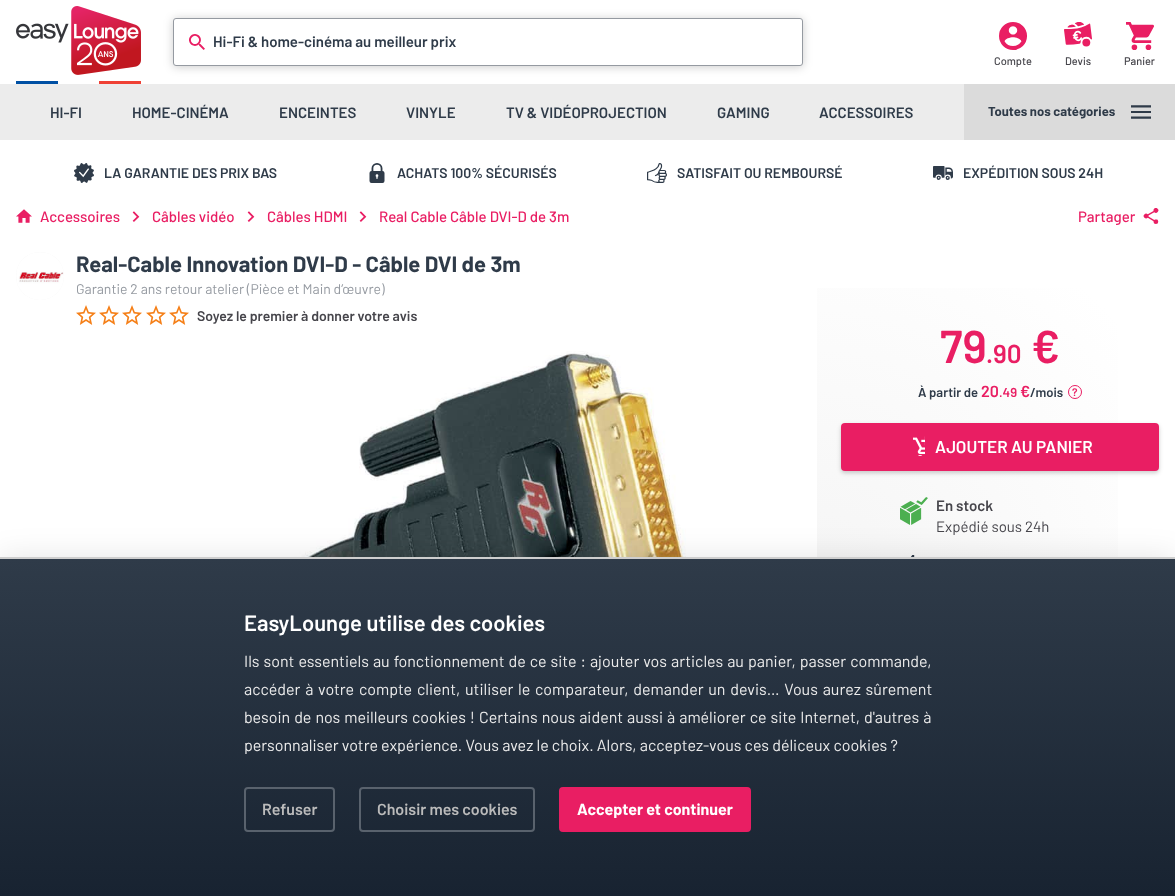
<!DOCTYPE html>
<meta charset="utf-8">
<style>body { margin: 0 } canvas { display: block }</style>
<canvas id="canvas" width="1175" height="896"></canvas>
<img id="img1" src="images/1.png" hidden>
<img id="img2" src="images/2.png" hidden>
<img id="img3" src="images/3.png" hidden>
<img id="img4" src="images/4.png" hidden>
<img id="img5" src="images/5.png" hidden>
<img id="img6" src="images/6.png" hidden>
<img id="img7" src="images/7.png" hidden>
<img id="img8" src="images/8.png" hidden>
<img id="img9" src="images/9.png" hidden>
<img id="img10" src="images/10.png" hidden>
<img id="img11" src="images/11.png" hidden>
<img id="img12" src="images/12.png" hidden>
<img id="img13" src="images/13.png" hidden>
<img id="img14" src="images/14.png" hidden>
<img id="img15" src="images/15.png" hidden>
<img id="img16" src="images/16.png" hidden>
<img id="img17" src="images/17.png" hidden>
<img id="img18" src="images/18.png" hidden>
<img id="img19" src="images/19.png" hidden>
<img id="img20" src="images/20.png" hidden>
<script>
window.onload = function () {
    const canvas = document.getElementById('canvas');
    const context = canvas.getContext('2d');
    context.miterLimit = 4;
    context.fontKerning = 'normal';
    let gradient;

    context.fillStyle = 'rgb(255, 255, 255)';
    context.fillRect(0, 0, 1175, 896);
    context.drawImage(document.getElementById('img1'), 16, 6, 125, 69);
    context.fillStyle = 'rgba(0, 0, 0, 0.2)';
    context.filter = 'blur(5px)';
    context.beginPath();
    context.roundRect(173, 19, 630, 48, 3);
    context.fill();
    context.filter = 'none';
    context.fillStyle = 'rgb(255, 255, 255)';
    context.beginPath();
    context.roundRect(173.5, 18.5, 629, 47, 2.5);
    context.fill();
    context.strokeStyle = 'rgb(149, 154, 161)';
    context.stroke();
    context.drawImage(document.getElementById('img2'), 189, 34, 16, 16);
    context.drawImage(document.getElementById('img3'), 999, 22, 28, 28);
    context.drawImage(document.getElementById('img4'), 1064, 22, 28, 25);
    context.drawImage(document.getElementById('img5'), 1126, 22, 28, 28);
    context.fillStyle = 'rgb(0, 80, 164)';
    context.fillRect(16, 81, 42, 3);
    context.fillStyle = 'rgb(239, 65, 53)';
    context.fillRect(99, 81, 42, 3);
    context.fillStyle = 'rgb(219, 219, 219)';
    context.fillRect(964, 84, 211, 56);
    context.drawImage(document.getElementById('img6'), 1131, 105, 20, 14);
    context.fillStyle = 'rgb(236, 236, 236)';
    context.fillRect(0, 84, 964, 56);
    context.drawImage(document.getElementById('img7'), 74, 163, 20, 20);
    context.drawImage(document.getElementById('img8'), 369, 163, 16, 20);
    context.drawImage(document.getElementById('img9'), 647, 163, 20, 20);
    context.drawImage(document.getElementById('img10'), 933, 166, 20, 14);
    context.drawImage(document.getElementById('img11'), 16, 209, 16, 14);
    context.drawImage(document.getElementById('img12'), 132, 211, 8, 11);
    context.drawImage(document.getElementById('img12'), 247, 211, 8, 11);
    context.drawImage(document.getElementById('img13'), 359, 211, 8, 11);
    context.drawImage(document.getElementById('img14'), 1143, 208, 16, 16);
    context.fillStyle = 'rgb(245, 245, 245)';
    context.beginPath();
    context.arc(40, 276, 24, 0, 2 * Math.PI);
    context.fill();
    context.drawImage(document.getElementById('img15'), 16, 252, 48, 48);
    context.drawImage(document.getElementById('img16'), 76, 305, 20, 20);
    context.drawImage(document.getElementById('img16'), 99, 305, 20, 20);
    context.drawImage(document.getElementById('img16'), 122, 305, 20, 20);
    context.drawImage(document.getElementById('img16'), 146, 305, 20, 20);
    context.drawImage(document.getElementById('img16'), 169, 305, 20, 20);
    context.drawImage(document.getElementById('img17'), 123, 351, 563, 206);
    gradient = context.createRadialGradient(817, 591, 0, 817, 591, 506);
    gradient.addColorStop(0, 'rgb(245, 245, 245)');
    gradient.addColorStop(0.8, 'rgb(255, 255, 255)');
    context.fillStyle = gradient;
    context.fillRect(817, 288, 301, 269);
    context.beginPath();
    context.arc(1075, 392, 6.5, 0, 2 * Math.PI);
    context.strokeStyle = 'rgb(233, 30, 99)';
    context.stroke();
    context.fillStyle = 'rgba(0, 0, 0, 0.2)';
    context.filter = 'blur(2px)';
    context.beginPath();
    context.roundRect(841, 425, 318, 48, 4);
    context.fill();
    context.filter = 'none';
    context.fillStyle = 'rgb(233, 30, 99)';
    context.beginPath();
    context.roundRect(841, 423, 318, 48, 4);
    context.fill();
    context.drawImage(document.getElementById('img18'), 913, 436, 12, 20);
    context.drawImage(document.getElementById('img19'), 900, 497, 28, 28);
    context.drawImage(document.getElementById('img20'), 911, 555, 4, 2);
    context.fillStyle = 'rgba(0, 0, 0, 0.1)';
    context.filter = 'blur(15px)';
    context.beginPath();
    context.rect(0, 557, 1175, 339);
    context.fill();
    context.filter = 'none';
    gradient = context.createLinearGradient(588, 559, 588, 896);
    gradient.addColorStop(0, 'rgb(47, 59, 73)');
    gradient.addColorStop(1, 'rgb(24, 35, 49)');
    context.fillStyle = gradient;
    context.fillRect(0, 559, 1175, 337);
    context.fillStyle = 'rgb(206, 206, 206)';
    context.fillRect(0, 557, 1175, 2);
    context.beginPath();
    context.roundRect(245, 788, 89, 43, 3);
    context.strokeStyle = 'rgb(89, 98, 109)';
    context.lineWidth = 2;
    context.stroke();
    context.beginPath();
    context.roundRect(360, 788, 174, 43, 3);
    context.stroke();
    context.fillStyle = 'rgb(233, 30, 99)';
    context.beginPath();
    context.roundRect(560, 788, 190, 43, 3);
    context.fill();
    context.strokeStyle = 'rgb(233, 30, 99)';
    context.stroke();
    context.font = '600 15px Barlow';
    context.fillStyle = 'rgb(47, 59, 73)';
    context.fillText('Hi-Fi & home-cinéma au meilleur prix', 213, 47);
    context.font = '500 11px Barlow';
    context.fillStyle = 'rgb(70, 69, 75)';
    context.fillText('Compte', 994, 65);
    context.fillText('Devis', 1065, 65);
    context.fillText('Panier', 1124, 65);
    context.font = '600 15px Barlow';
    context.fillStyle = 'rgb(47, 59, 73)';
    context.fillText('HI-FI', 50, 118);
    context.fillText('HOME-CINÉMA', 132, 118);
    context.fillText('ENCEINTES', 279, 118);
    context.fillText('VINYLE', 406, 118);
    context.fillText('TV & VIDÉOPROJECTION', 506, 118);
    context.fillText('GAMING', 717, 118);
    context.fillText('ACCESSOIRES', 819, 118);
    context.font = 'bold 13px Barlow';
    context.fillText('Toutes nos catégories', 988, 116);
    context.font = '600 14px Barlow';
    context.fillText('LA GARANTIE DES PRIX BAS', 104, 178);
    context.fillText('ACHATS 100% SÉCURISÉS', 397, 178);
    context.fillText('SATISFAIT OU REMBOURSÉ', 677, 178);
    context.fillText('EXPÉDITION SOUS 24H', 963, 178);
    context.font = '500 15px Barlow';
    context.fillStyle = 'rgb(233, 30, 99)';
    context.fillText('Accessoires', 40, 222);
    context.fillText('Câbles vidéo', 152, 222);
    context.fillText('Câbles HDMI', 267, 222);
    context.fillText('Real Cable Câble DVI-D de 3m', 379, 222);
    context.fillText('Partager', 1078, 222);
    context.font = 'bold 22px Barlow';
    context.fillStyle = 'rgb(47, 59, 73)';
    context.fillText('Real-Cable Innovation DVI-D - Câble DVI de 3m', 76, 272);
    context.font = '14px Barlow';
    context.fillStyle = 'rgb(149, 154, 161)';
    context.fillText('Garantie 2 ans retour atelier (Pièce et Main d’œuvre)', 76, 294);
    context.font = '600 14px Barlow';
    context.fillStyle = 'rgb(70, 69, 75)';
    context.fillText('Soyez le premier à donner votre avis', 197, 321);
    context.font = '600 46px Barlow';
    context.fillStyle = 'rgb(233, 30, 99)';
    context.fillText('79', 940, 363);
    context.font = '600 26px Barlow';
    context.fillText('.90', 986, 363);
    context.font = '600 46px Barlow';
    context.fillText('€', 1031, 363);
    context.font = '600 13px Barlow';
    context.fillStyle = 'rgb(47, 59, 73)';
    context.fillText('À partir de', 918, 397);
    context.font = '600 16px Barlow';
    context.fillStyle = 'rgb(233, 30, 99)';
    context.fillText('20', 981, 397);
    context.font = '600 13px Barlow';
    context.fillText('.49', 999, 397);
    context.font = '600 16px Barlow';
    context.fillText('€', 1020, 397);
    context.font = '600 13px Barlow';
    context.fillStyle = 'rgb(47, 59, 73)';
    context.fillText('/mois', 1030, 397);
    context.font = '600 11px Barlow';
    context.fillStyle = 'rgb(233, 30, 99)';
    context.fillText('?', 1072, 396);
    context.font = '600 17px Barlow';
    context.fillStyle = 'rgb(255, 255, 255)';
    context.fillText('AJOUTER AU PANIER', 935, 453);
    context.font = '600 15px Barlow';
    context.fillStyle = 'rgb(70, 69, 75)';
    context.fillText('En stock', 936, 511);
    context.font = '15px Barlow';
    context.fillText('Expédié sous 24h', 936, 532);
    context.font = '600 22px Barlow';
    context.fillStyle = 'rgb(255, 255, 255)';
    context.fillText('EasyLounge utilise des cookies', 244, 631);
    context.wordSpacing = '0.8px';
    context.font = '16px Barlow';
    context.fillStyle = 'rgb(236, 236, 236)';
    context.fillText('Ils sont essentiels au fonctionnement de ce site : ajouter vos articles au panier, passer commande,', 244, 667);
    context.wordSpacing = '1.6px';
    context.fillText('accéder à votre compte client, utiliser le comparateur, demander un devis… Vous aurez sûrement', 244, 695);
    context.wordSpacing = '0.8px';
    context.fillText('besoin de nos meilleurs cookies ! Certains nous aident aussi à améliorer ce site Internet, d\'autres à', 244, 723);
    context.wordSpacing = '0px';
    context.fillText('personnaliser votre expérience. Vous avez le choix. Alors, acceptez-vous ces déliceux cookies ?', 244, 751);
    context.font = '600 16px Barlow';
    context.fillStyle = 'rgb(187, 187, 187)';
    context.fillText('Refuser', 262, 815);
    context.fillText('Choisir mes cookies', 377, 815);
    context.font = 'bold 16px Barlow';
    context.fillStyle = 'rgb(255, 255, 255)';
    context.fillText('Accepter et continuer', 577, 815);
};
</script>
